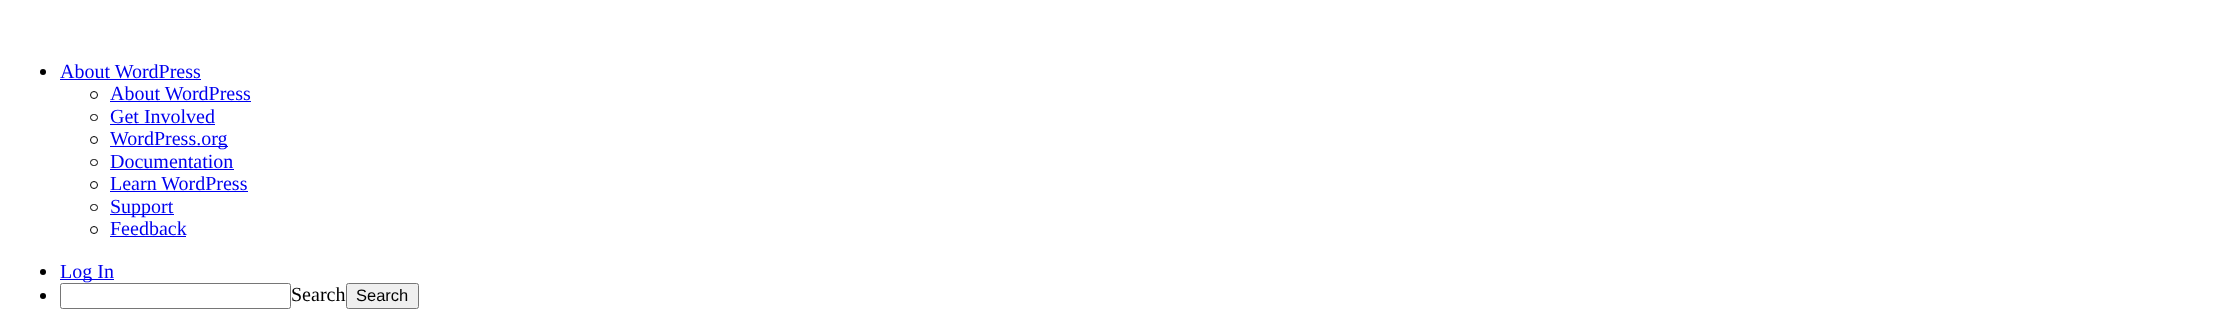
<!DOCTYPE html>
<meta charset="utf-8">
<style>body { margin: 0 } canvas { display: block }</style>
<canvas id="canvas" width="2229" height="323"></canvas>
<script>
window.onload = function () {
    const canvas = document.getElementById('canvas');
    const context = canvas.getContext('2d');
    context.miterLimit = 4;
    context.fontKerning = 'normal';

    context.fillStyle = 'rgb(255, 255, 255)';
    context.fillRect(0, 0, 2229, 323);
    context.fillStyle = 'rgb(0, 0, 0)';
    context.beginPath();
    context.arc(43, 72, 3, 0, 2 * Math.PI);
    context.fill();
    context.fillStyle = 'rgb(0, 0, 238)';
    context.fillRect(60, 79, 141, 1);
    context.beginPath();
    context.arc(94, 95, 3.5, 0, 2 * Math.PI);
    context.strokeStyle = 'rgb(0, 0, 0)';
    context.stroke();
    context.fillRect(110, 101, 141, 1);
    context.beginPath();
    context.roundRect(90.5, 114.5, 7, 6, 3);
    context.stroke();
    context.fillRect(110, 124, 105, 1);
    context.beginPath();
    context.arc(94, 140, 3.5, 0, 2 * Math.PI);
    context.stroke();
    context.fillRect(110, 146, 118, 1);
    context.beginPath();
    context.roundRect(90.5, 159.5, 7, 6, 3);
    context.stroke();
    context.fillRect(110, 169, 124, 1);
    context.beginPath();
    context.arc(94, 185, 3.5, 0, 2 * Math.PI);
    context.stroke();
    context.fillRect(110, 191, 138, 1);
    context.beginPath();
    context.roundRect(90.5, 204.5, 7, 6, 3);
    context.stroke();
    context.fillRect(110, 214, 64, 1);
    context.beginPath();
    context.arc(94, 230, 3.5, 0, 2 * Math.PI);
    context.stroke();
    context.fillRect(110, 236, 76, 1);
    context.fillStyle = 'rgb(0, 0, 0)';
    context.beginPath();
    context.arc(43, 272, 3, 0, 2 * Math.PI);
    context.fill();
    context.fillStyle = 'rgb(0, 0, 238)';
    context.fillRect(60, 279, 54, 1);
    context.fillStyle = 'rgb(0, 0, 0)';
    context.beginPath();
    context.arc(43, 296, 3, 0, 2 * Math.PI);
    context.fill();
    context.beginPath();
    context.roundRect(60.5, 283.5, 230, 25, 2);
    context.strokeStyle = 'rgb(118, 118, 118)';
    context.stroke();
    context.fillStyle = 'rgb(239, 239, 239)';
    context.beginPath();
    context.roundRect(346.5, 283.5, 72, 25, 2);
    context.fill();
    context.stroke();
    context.font = '20px Liberation Serif';
    context.fillStyle = 'rgb(0, 0, 238)';
    context.fillText('About WordPress', 60, 78);
    context.fillText('About WordPress', 110, 100);
    context.fillText('Get Involved', 110, 123);
    context.fillText('WordPress.org', 110, 145);
    context.fillText('Documentation', 110, 168);
    context.fillText('Learn WordPress', 110, 190);
    context.fillText('Support', 110, 213);
    context.fillText('Feedback', 110, 235);
    context.fillText('Log In', 60, 278);
    context.fillStyle = 'rgb(0, 0, 0)';
    context.fillText('Search', 291, 301);
    context.font = '16.5px Liberation Sans';
    context.fillText('Search', 356, 301);
};
</script>
